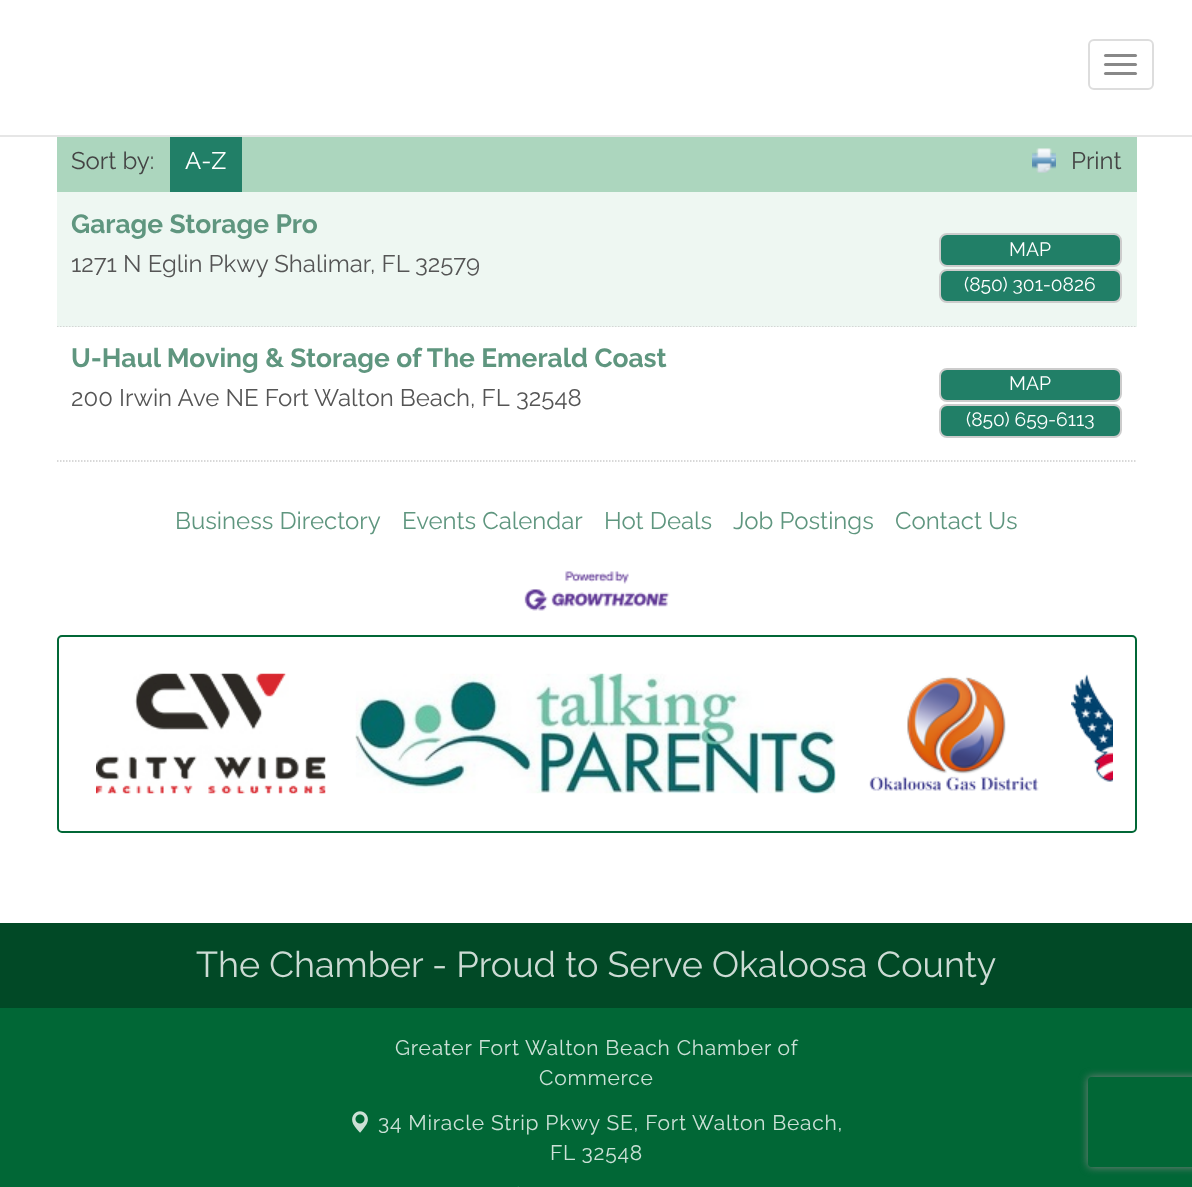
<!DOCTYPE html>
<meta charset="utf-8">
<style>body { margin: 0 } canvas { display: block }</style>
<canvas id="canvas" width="1192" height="1187"></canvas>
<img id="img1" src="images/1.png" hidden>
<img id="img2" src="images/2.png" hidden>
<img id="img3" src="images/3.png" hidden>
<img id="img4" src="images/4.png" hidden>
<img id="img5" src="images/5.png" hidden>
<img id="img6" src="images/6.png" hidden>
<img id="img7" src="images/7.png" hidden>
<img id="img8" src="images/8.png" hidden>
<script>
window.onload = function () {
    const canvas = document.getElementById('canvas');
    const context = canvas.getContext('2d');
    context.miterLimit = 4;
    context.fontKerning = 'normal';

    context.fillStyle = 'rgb(255, 255, 255)';
    context.fillRect(0, 0, 1192, 1187);
    context.fillStyle = 'rgb(230, 230, 230)';
    context.fillRect(0, 135, 1192, 2);
    context.beginPath();
    context.roundRect(1089, 40, 64, 49, 5);
    context.strokeStyle = 'rgb(221, 221, 221)';
    context.lineWidth = 2;
    context.stroke();
    context.fillStyle = 'rgb(136, 136, 136)';
    context.beginPath();
    context.roundRect(1104, 54, 33, 3, 1.5);
    context.fill();
    context.beginPath();
    context.roundRect(1104, 63, 33, 3, 1.5);
    context.fill();
    context.beginPath();
    context.roundRect(1104, 72, 33, 3, 1.5);
    context.fill();
    context.fillStyle = 'rgb(172, 214, 190)';
    context.fillRect(57, 137, 1080, 55);
    context.fillStyle = 'rgb(33, 127, 103)';
    context.fillRect(170, 137, 72, 55);
    context.drawImage(document.getElementById('img1'), 1032, 148, 24, 25);
    context.fillStyle = 'rgb(238, 247, 242)';
    context.fillRect(57, 326, 1080, 1);
    context.beginPath();
    context.moveTo(57, 326);
    context.lineTo(1137, 326);
    context.strokeStyle = 'rgb(204, 204, 204)';
    context.lineWidth = 1.5;
    context.setLineDash([1.5, 1.5]);
    context.stroke();
    context.fillRect(57, 192, 1080, 134);
    context.fillStyle = 'rgb(33, 127, 103)';
    context.beginPath();
    context.roundRect(940, 234, 181, 32, 7);
    context.fill();
    context.lineWidth = 2;
    context.setLineDash([]);
    context.stroke();
    context.beginPath();
    context.roundRect(940, 270, 181, 32, 7);
    context.fill();
    context.stroke();
    context.beginPath();
    context.moveTo(57, 461);
    context.lineTo(1137, 461);
    context.lineWidth = 1.5;
    context.setLineDash([1.5, 1.5]);
    context.stroke();
    context.beginPath();
    context.roundRect(940, 369, 181, 32, 7);
    context.fill();
    context.lineWidth = 2;
    context.setLineDash([]);
    context.stroke();
    context.beginPath();
    context.roundRect(940, 405, 181, 32, 7);
    context.fill();
    context.stroke();
    context.drawImage(document.getElementById('img2'), 524, 571, 146, 40);
    context.beginPath();
    context.roundRect(58, 636, 1078, 196, 4);
    context.strokeStyle = 'rgb(1, 103, 54)';
    context.stroke();
    context.drawImage(document.getElementById('img3'), 96, 673, 230, 121);
    context.drawImage(document.getElementById('img4'), 355, 673, 481, 121);
    context.drawImage(document.getElementById('img5'), 869, 676, 170, 115);
    context.drawImage(document.getElementById('img6'), 1071, 674, 42, 108);
    context.fillStyle = 'rgb(1, 73, 38)';
    context.fillRect(0, 923, 1192, 85);
    context.fillStyle = 'rgb(1, 103, 54)';
    context.fillRect(0, 1008, 1192, 179);
    context.drawImage(document.getElementById('img7'), 352, 1111, 16, 22);
    context.drawImage(document.getElementById('img8'), 517, 1186, 2, 1);
    context.save();
    context.beginPath();
    context.moveTo(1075, 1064);
    context.lineTo(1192, 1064);
    context.lineTo(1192, 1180);
    context.lineTo(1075, 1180);
    context.closePath();
    context.moveTo(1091, 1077);
    context.lineTo(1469, 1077);
    context.bezierCurveTo(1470.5, 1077, 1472, 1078.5, 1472, 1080);
    context.lineTo(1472, 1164);
    context.bezierCurveTo(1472, 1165.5, 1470.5, 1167, 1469, 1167);
    context.lineTo(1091, 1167);
    context.bezierCurveTo(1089.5, 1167, 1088, 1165.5, 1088, 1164);
    context.lineTo(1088, 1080);
    context.bezierCurveTo(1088, 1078.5, 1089.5, 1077, 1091, 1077);
    context.closePath();
    context.clip('evenodd');
    context.fillStyle = 'rgb(128, 128, 128)';
    context.filter = 'blur(4px)';
    context.beginPath();
    context.roundRect(1088, 1077, 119, 90, 3);
    context.fill();
    context.filter = 'none';
    context.restore();
    context.font = '24px Raleway';
    context.fillStyle = 'rgb(68, 68, 68)';
    context.fillText('Sort by:', 71, 169);
    context.fillStyle = 'rgb(255, 255, 255)';
    context.fillText('A-Z', 185, 169);
    context.fillStyle = 'rgb(68, 68, 68)';
    context.fillText('Print', 1071, 169);
    context.font = 'bold 26.4px Raleway';
    context.fillStyle = 'rgb(95, 150, 127)';
    context.fillText('Garage Storage Pro', 71, 233);
    context.font = '24px Raleway';
    context.fillStyle = 'rgb(85, 85, 85)';
    context.fillText('1271 N Eglin Pkwy Shalimar', 71, 272);
    context.fillText(', FL', 370, 272);
    context.fillText('32579', 415, 272);
    context.font = '19.25px Raleway';
    context.fillStyle = 'rgb(255, 255, 255)';
    context.fillText('MAP', 1009, 256);
    context.fillText('(850) 301-0826', 964, 291);
    context.font = 'bold 26.4px Raleway';
    context.fillStyle = 'rgb(95, 150, 127)';
    context.fillText('U-Haul Moving & Storage of The Emerald Coast', 71, 367);
    context.font = '24px Raleway';
    context.fillStyle = 'rgb(85, 85, 85)';
    context.fillText('200 Irwin Ave NE Fort Walton Beach, FL', 71, 406);
    context.fillText('32548', 516, 406);
    context.font = '19.25px Raleway';
    context.fillStyle = 'rgb(255, 255, 255)';
    context.fillText('MAP', 1009, 390);
    context.fillText('(850) 659-6113', 966, 426);
    context.font = '24px Raleway';
    context.fillStyle = 'rgb(95, 150, 127)';
    context.fillText('Business Directory', 175, 529);
    context.fillText('Events Calendar', 402, 529);
    context.fillText('Hot Deals', 604, 529);
    context.fillText('Job Postings', 733, 529);
    context.fillText('Contact Us', 895, 529);
    context.font = '36px Raleway';
    context.fillStyle = 'rgb(204, 219, 212)';
    context.fillText('The Chamber - Proud to Serve Okaloosa County', 196, 977);
    context.letterSpacing = '0.75px';
    context.font = '21px Raleway';
    context.fillStyle = 'rgb(204, 225, 215)';
    context.fillText('Greater Fort Walton Beach Chamber of', 395, 1055);
    context.fillText('Commerce', 539, 1085);
    context.fillText('34 Miracle Strip Pkwy SE, Fort Walton Beach,', 378, 1130);
    context.fillText('FL 32548', 550, 1160);
};
</script>
